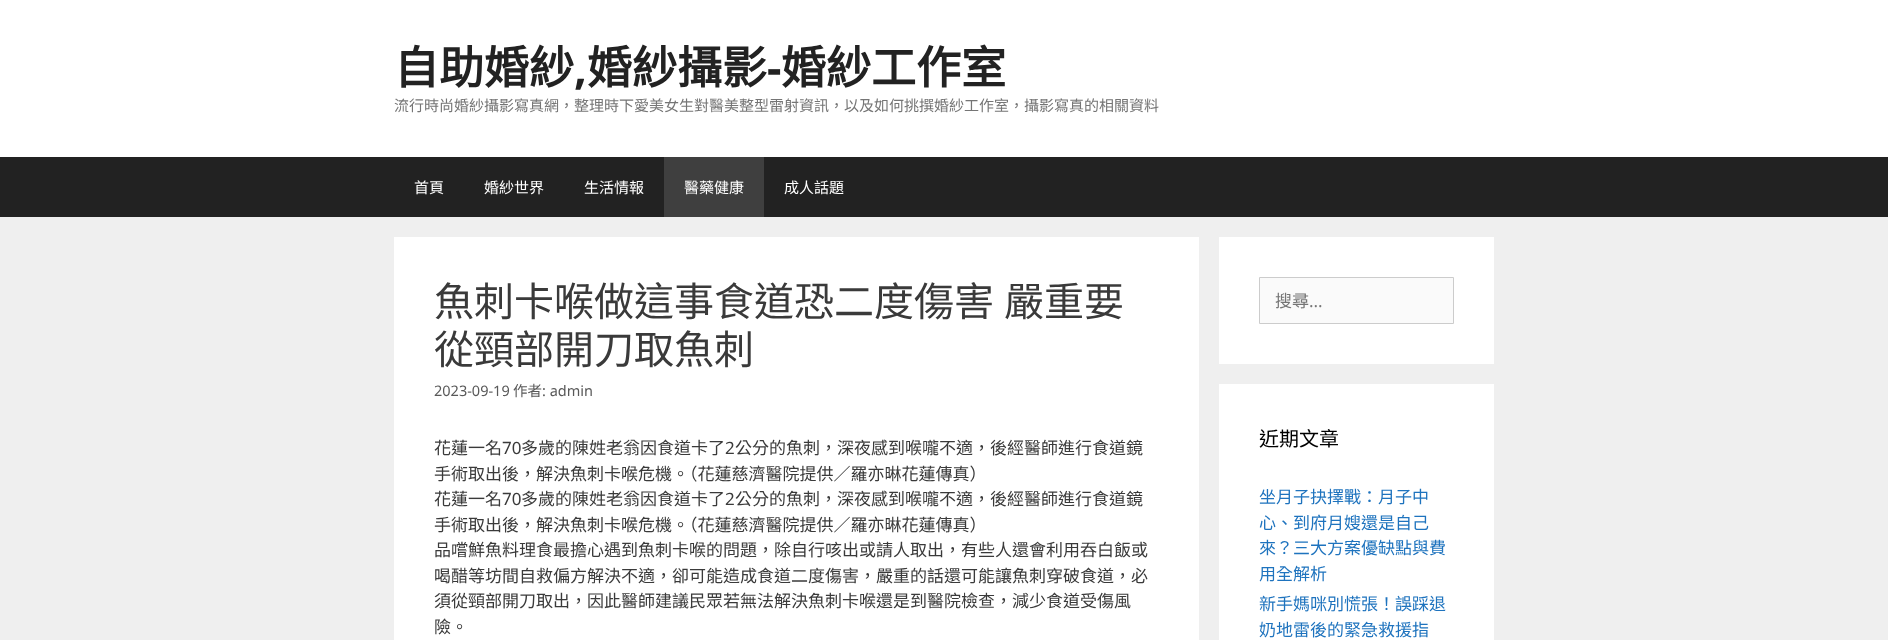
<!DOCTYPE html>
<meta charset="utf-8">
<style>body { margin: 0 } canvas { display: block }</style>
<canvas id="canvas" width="1888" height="640"></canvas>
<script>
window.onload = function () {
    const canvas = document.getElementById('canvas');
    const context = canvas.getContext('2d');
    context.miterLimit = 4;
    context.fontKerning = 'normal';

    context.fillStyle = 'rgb(239, 239, 239)';
    context.fillRect(0, 0, 1888, 640);
    context.fillStyle = 'rgb(255, 255, 255)';
    context.fillRect(0, 0, 1888, 157);
    context.fillStyle = 'rgb(34, 34, 34)';
    context.fillRect(0, 157, 1888, 60);
    context.fillStyle = 'rgb(63, 63, 63)';
    context.fillRect(664, 157, 100, 60);
    context.fillStyle = 'rgb(255, 255, 255)';
    context.fillRect(394, 237, 805, 403);
    context.fillRect(1219, 237, 275, 127);
    context.fillStyle = 'rgb(250, 250, 250)';
    context.beginPath();
    context.rect(1259.5, 277.5, 194, 46);
    context.fill();
    context.strokeStyle = 'rgb(204, 204, 204)';
    context.stroke();
    context.fillStyle = 'rgb(255, 255, 255)';
    context.fillRect(1219, 384, 275, 256);
    context.font = 'bold 45px Noto Sans CJK TC';
    context.fillStyle = 'rgb(34, 34, 34)';
    context.fillText('自助婚紗', 394, 84);
    context.fillText('婚紗攝影', 587, 84);
    context.font = 'bold 45px Noto Sans';
    context.fillText('-', 767, 84);
    context.font = 'bold 45px Noto Sans CJK TC';
    context.fillText('婚紗工作室', 781, 84);
    context.font = 'bold 45px Noto Sans';
    context.fillText(',', 574, 84);
    context.font = '15px Noto Sans CJK TC';
    context.fillStyle = 'rgb(117, 117, 117)';
    context.fillText('流行時尚婚紗攝影寫真網，整理時下愛美女生對醫美整型雷射資訊，以及如何挑撰婚紗工作室，攝影寫真的相關資料', 394, 111);
    context.fillStyle = 'rgb(255, 255, 255)';
    context.fillText('首頁', 414, 193);
    context.fillText('婚紗世界', 484, 193);
    context.fillText('生活情報', 584, 193);
    context.fillText('醫藥健康', 684, 193);
    context.fillText('成人話題', 784, 193);
    context.wordSpacing = '1px';
    context.font = '40px Noto Sans CJK TC';
    context.fillStyle = 'rgb(58, 58, 58)';
    context.fillText('魚刺卡喉做這事食道恐二度傷害 嚴重要', 434, 316);
    context.wordSpacing = '0px';
    context.fillText('從頸部開刀取魚刺', 434, 364);
    context.font = '14.5px Noto Sans';
    context.fillStyle = 'rgb(89, 89, 89)';
    context.fillText('2023-09-19', 434, 396);
    context.font = '14.5px Noto Sans CJK TC';
    context.fillText('作者', 513, 396);
    context.font = '14.5px Noto Sans';
    context.fillText(': admin', 542, 396);
    context.font = '17px Noto Sans CJK TC';
    context.fillStyle = 'rgb(58, 58, 58)';
    context.fillText('花蓮一名', 434, 454);
    context.font = '17px Noto Sans';
    context.fillText('70', 502, 454);
    context.font = '17px Noto Sans CJK TC';
    context.fillText('多歲的陳姓老翁因食道卡了', 521, 454);
    context.font = '17px Noto Sans';
    context.fillText('2', 725, 454);
    context.font = '17px Noto Sans CJK TC';
    context.fillText('公分的魚刺，深夜感到喉嚨不適，後經醫師進行食道鏡', 735, 454);
    context.fillText('手術取出後，解決魚刺卡喉危機。（花蓮慈濟醫院提供／羅亦晽花蓮傳真）', 434, 480);
    context.fillText('花蓮一名', 434, 505);
    context.font = '17px Noto Sans';
    context.fillText('70', 502, 505);
    context.font = '17px Noto Sans CJK TC';
    context.fillText('多歲的陳姓老翁因食道卡了', 521, 505);
    context.font = '17px Noto Sans';
    context.fillText('2', 725, 505);
    context.font = '17px Noto Sans CJK TC';
    context.fillText('公分的魚刺，深夜感到喉嚨不適，後經醫師進行食道鏡', 735, 505);
    context.fillText('手術取出後，解決魚刺卡喉危機。（花蓮慈濟醫院提供／羅亦晽花蓮傳真）', 434, 531);
    context.fillText('品嚐鮮魚料理食最擔心遇到魚刺卡喉的問題，除自行咳出或請人取出，有些人還會利用吞白飯或', 434, 556);
    context.fillText('喝醋等坊間自救偏方解決不適，卻可能造成食道二度傷害，嚴重的話還可能讓魚刺穿破食道，必', 434, 582);
    context.fillText('須從頸部開刀取出，因此醫師建議民眾若無法解決魚刺卡喉還是到醫院檢查，減少食道受傷風', 434, 607);
    context.fillText('險。', 434, 633);
    context.fillStyle = 'rgb(117, 117, 117)';
    context.fillText('搜尋', 1275, 307);
    context.font = '17px Noto Sans';
    context.fillText('...', 1309, 307);
    context.font = '20px Noto Sans CJK TC';
    context.fillStyle = 'rgb(0, 0, 0)';
    context.fillText('近期文章', 1259, 446);
    context.font = '17px Noto Sans CJK TC';
    context.fillStyle = 'rgb(30, 115, 190)';
    context.fillText('坐月子抉擇戰：月子中', 1259, 503);
    context.fillText('心、到府月嫂還是自己', 1259, 529);
    context.fillText('來？三大方案優缺點與費', 1259, 554);
    context.fillText('用全解析', 1259, 580);
    context.fillText('新手媽咪別慌張！誤踩退', 1259, 610);
    context.fillText('奶地雷後的緊急救援指', 1259, 636);
};
</script>
